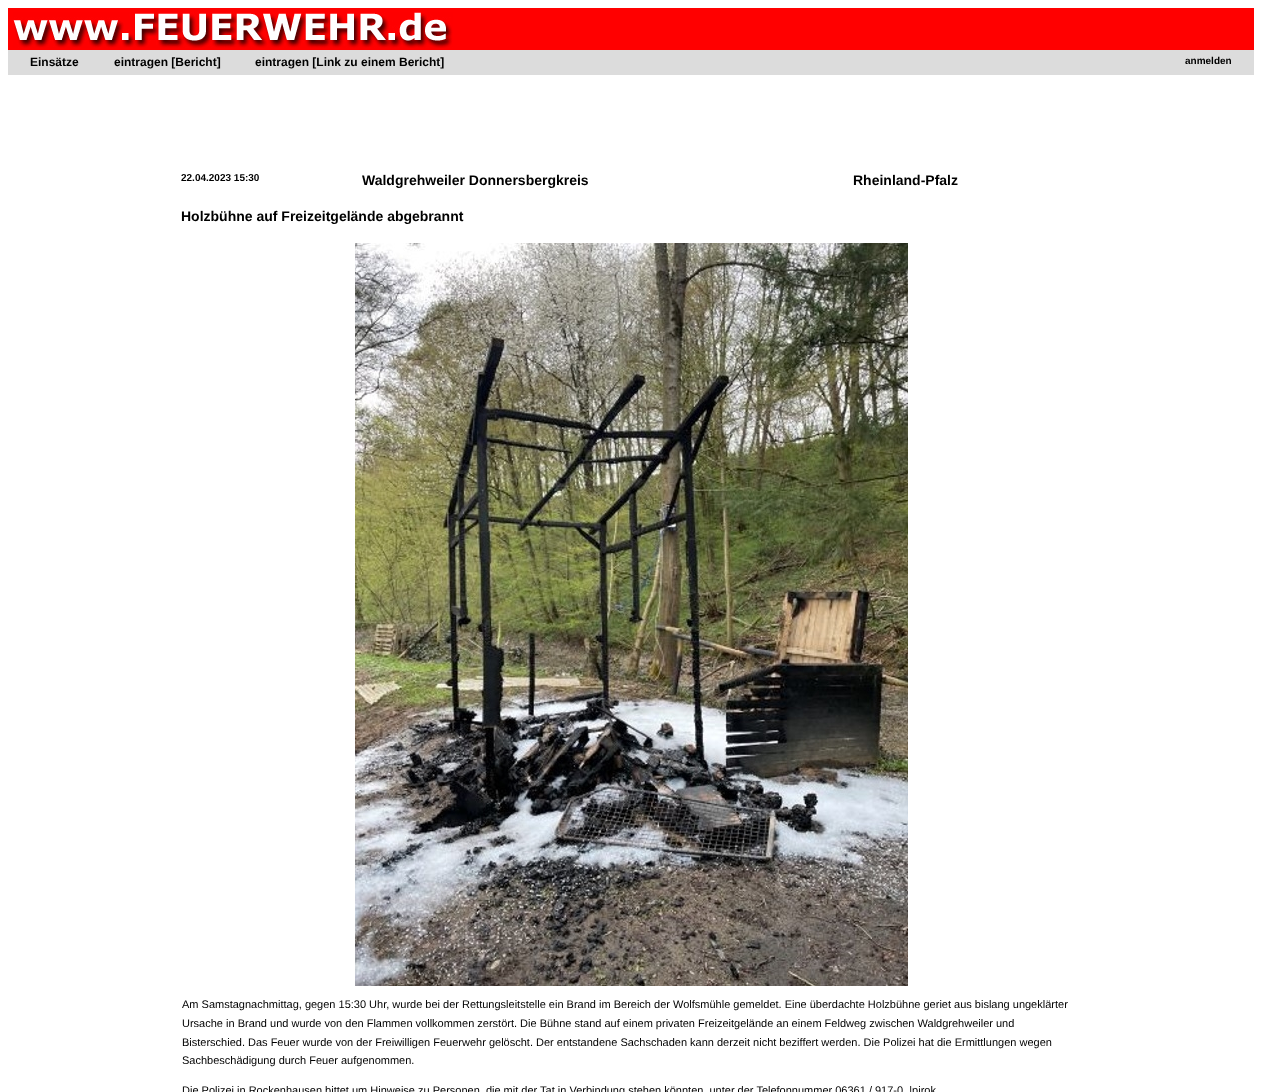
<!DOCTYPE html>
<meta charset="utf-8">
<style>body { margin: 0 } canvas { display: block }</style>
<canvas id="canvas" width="1262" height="1092"></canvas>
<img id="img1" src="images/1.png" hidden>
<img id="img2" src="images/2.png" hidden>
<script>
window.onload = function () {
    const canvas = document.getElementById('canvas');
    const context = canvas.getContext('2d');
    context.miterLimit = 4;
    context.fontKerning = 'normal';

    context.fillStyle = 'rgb(255, 255, 255)';
    context.fillRect(0, 0, 1262, 1092);
    context.fillStyle = 'rgb(255, 0, 0)';
    context.fillRect(8, 8, 1246, 42);
    context.drawImage(document.getElementById('img1'), 13, 12, 440, 36);
    context.fillStyle = 'rgb(220, 220, 220)';
    context.fillRect(8, 50, 1246, 25);
    context.drawImage(document.getElementById('img2'), 355, 243, 553, 743);
    context.font = 'bold 12px Liberation Sans';
    context.fillStyle = 'rgb(0, 0, 0)';
    context.fillText('Einsätze', 30, 66);
    context.fillText('eintragen [Bericht]', 114, 66);
    context.fillText('eintragen [Link zu einem Bericht]', 255, 66);
    context.font = 'bold 10px Liberation Sans';
    context.fillText('anmelden', 1185, 64);
    context.fillText('22.04.2023 15:30', 181, 181);
    context.font = 'bold 14px Liberation Sans';
    context.fillText('Waldgrehweiler Donnersbergkreis', 362, 185);
    context.fillText('Rheinland-Pfalz', 853, 185);
    context.fillText('Holzbühne auf Freizeitgelände abgebrannt', 181, 221);
    context.font = '11px Liberation Sans';
    context.fillText('Am Samstagnachmittag, gegen 15:30 Uhr, wurde bei der Rettungsleitstelle ein Brand im Bereich der Wolfsmühle gemeldet. Eine überdachte Holzbühne geriet aus bislang ungeklärter', 182, 1008);
    context.fillText('Ursache in Brand und wurde von den Flammen vollkommen zerstört. Die Bühne stand auf einem privaten Freizeitgelände an einem Feldweg zwischen Waldgrehweiler und', 182, 1027);
    context.fillText('Bisterschied. Das Feuer wurde von der Freiwilligen Feuerwehr gelöscht. Der entstandene Sachschaden kann derzeit nicht beziffert werden. Die Polizei hat die Ermittlungen wegen', 182, 1046);
    context.fillText('Sachbeschädigung durch Feuer aufgenommen.', 182, 1064);
    context.fillText('Die Polizei in Rockenhausen bittet um Hinweise zu Personen, die mit der Tat in Verbindung stehen könnten, unter der Telefonnummer 06361 / 917-0. |pirok', 182, 1094);
};
</script>
